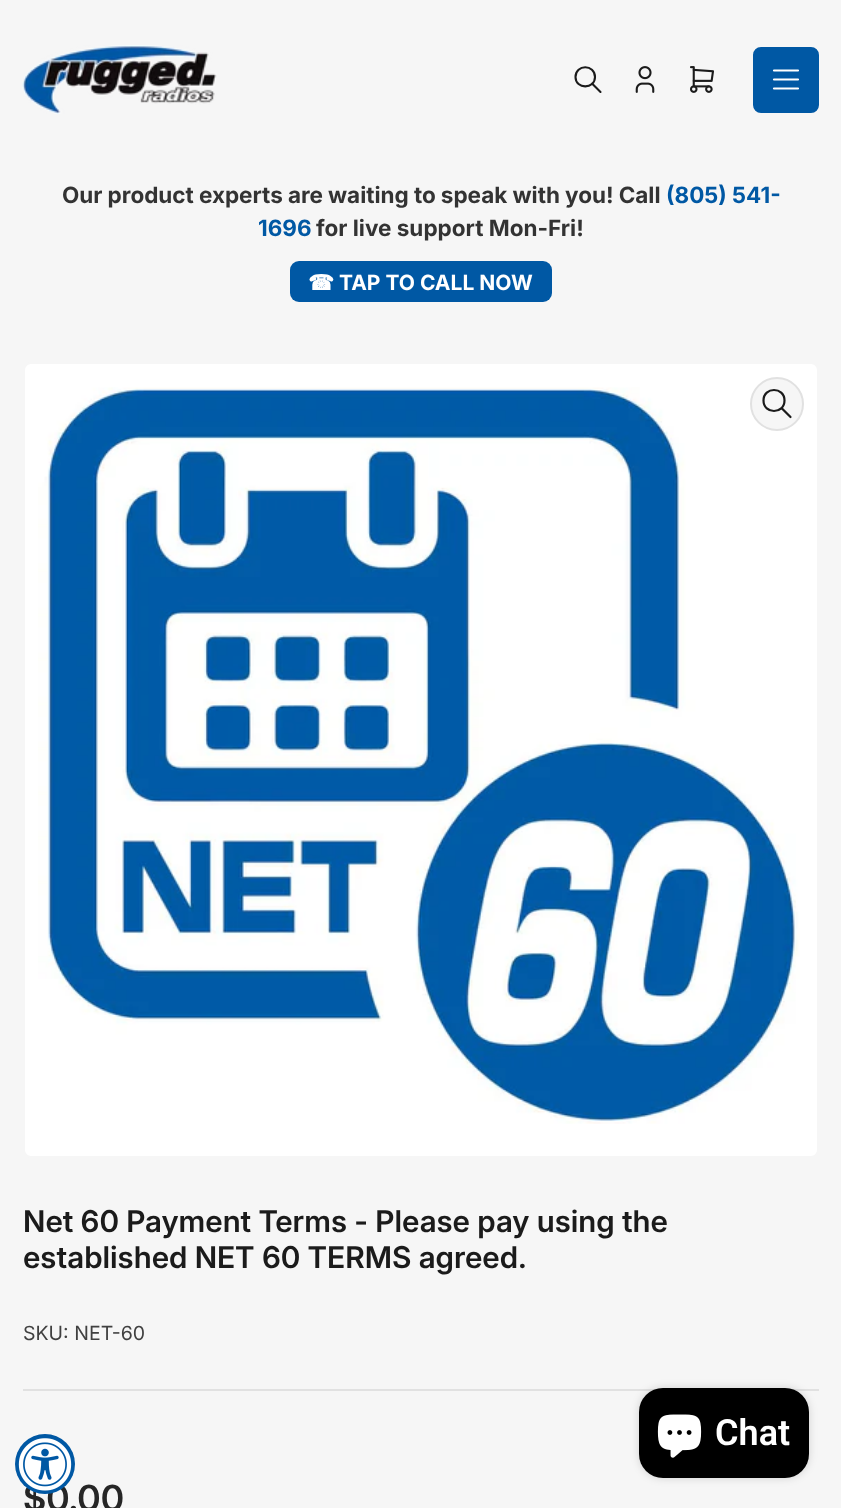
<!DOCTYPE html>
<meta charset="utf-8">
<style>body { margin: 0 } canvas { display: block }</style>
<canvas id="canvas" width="841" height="1508"></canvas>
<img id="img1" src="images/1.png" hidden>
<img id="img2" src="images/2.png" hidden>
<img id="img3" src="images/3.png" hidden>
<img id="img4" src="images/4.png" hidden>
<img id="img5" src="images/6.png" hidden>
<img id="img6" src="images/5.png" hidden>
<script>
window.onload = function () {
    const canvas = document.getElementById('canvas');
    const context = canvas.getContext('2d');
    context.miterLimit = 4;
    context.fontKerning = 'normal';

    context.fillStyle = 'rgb(246, 246, 246)';
    context.fillRect(0, 0, 841, 1508);
    context.drawImage(document.getElementById('img1'), 22, 45, 195, 69);
    context.beginPath();
    context.moveTo(575.5, 77);
    context.bezierCurveTo(575.5, 89.5, 595, 89.5, 595, 77);
    context.bezierCurveTo(595, 64, 575.5, 64, 575.5, 77);
    context.moveTo(600.5, 92);
    context.lineTo(592, 83.5);
    context.strokeStyle = 'rgb(27, 27, 27)';
    context.lineWidth = 2.1;
    context.lineCap = 'round';
    context.lineJoin = 'round';
    context.stroke();
    context.drawImage(document.getElementById('img2'), 635, 66, 20, 27);
    context.drawImage(document.getElementById('img3'), 690, 66, 24, 27);
    context.fillStyle = 'rgb(0, 88, 164)';
    context.beginPath();
    context.roundRect(754, 48, 64, 64, 7);
    context.fill();
    context.strokeStyle = 'rgb(0, 88, 164)';
    context.lineWidth = 2;
    context.lineJoin = 'miter';
    context.stroke();
    context.beginPath();
    context.moveTo(774, 70.5);
    context.lineTo(798, 70.5);
    context.moveTo(774, 79.5);
    context.lineTo(798, 79.5);
    context.moveTo(774, 88.5);
    context.lineTo(798, 88.5);
    context.strokeStyle = 'rgb(255, 255, 255)';
    context.lineWidth = 2.2;
    context.lineJoin = 'round';
    context.stroke();
    context.beginPath();
    context.roundRect(290, 261, 262, 41, 9);
    context.fill();
    context.fillStyle = 'rgb(255, 255, 255)';
    context.beginPath();
    context.roundRect(24, 363, 794, 794, 7);
    context.fill();
    context.strokeStyle = 'rgb(246, 246, 246)';
    context.lineWidth = 2;
    context.lineJoin = 'miter';
    context.stroke();
    context.drawImage(document.getElementById('img4'), 38, 387, 762, 737);
    context.fillStyle = 'rgb(246, 246, 246)';
    context.beginPath();
    context.arc(777, 404, 26, 0, 2 * Math.PI);
    context.fill();
    context.strokeStyle = 'rgb(225, 225, 225)';
    context.stroke();
    context.beginPath();
    context.moveTo(763.5, 400.5);
    context.bezierCurveTo(763.5, 414.5, 784.5, 414.5, 784.5, 400.5);
    context.bezierCurveTo(784.5, 386.5, 763.5, 386.5, 763.5, 400.5);
    context.moveTo(790.5, 417);
    context.lineTo(781.5, 408);
    context.strokeStyle = 'rgb(27, 27, 27)';
    context.lineWidth = 2.2;
    context.lineJoin = 'round';
    context.stroke();
    context.fillStyle = 'rgb(225, 225, 225)';
    context.fillRect(23, 1389, 796, 2);
    context.fillStyle = 'rgba(0, 0, 0, 0.15)';
    context.filter = 'blur(4px)';
    context.beginPath();
    context.roundRect(639, 1388, 170, 90, 24);
    context.fill();
    context.filter = 'none';
    context.fillStyle = 'rgb(0, 0, 0)';
    context.beginPath();
    context.roundRect(639, 1388, 170, 90, 24);
    context.fill();
    context.drawImage(document.getElementById('img5'), 657, 1414, 45, 44);
    context.wordSpacing = '-0.25px';
    context.font = 'bold 22.5px Inter';
    context.fillStyle = 'rgb(51, 51, 51)';
    context.fillText('Our product experts are waiting to speak with you! Call', 62, 203);
    context.wordSpacing = '0px';
    context.fillStyle = 'rgb(0, 88, 164)';
    context.fillText('(805) 541-', 666, 203);
    context.fillText('1696', 258, 236);
    context.fillStyle = 'rgb(51, 51, 51)';
    context.fillText('for live support Mon-Fri!', 316, 236);
    context.font = 'bold 21px DejaVu Sans';
    context.fillStyle = 'rgb(255, 255, 255)';
    context.fillText('☎', 308, 290);
    context.font = 'bold 21px Inter';
    context.fillText('TAP TO CALL NOW', 339, 290);
    context.font = '600 30px Inter';
    context.fillStyle = 'rgb(27, 27, 27)';
    context.fillText('Net 60 Payment Terms - Please pay using the', 23, 1232);
    context.fillText('established NET 60 TERMS agreed.', 23, 1268);
    context.font = '19.5px Inter';
    context.fillStyle = 'rgb(64, 64, 64)';
    context.fillText('SKU: NET-60', 23, 1340);
    context.font = '600 36px "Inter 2"';
    context.fillStyle = 'rgb(38, 38, 38)';
    context.fillText('$0.00', 23, 1511);
    context.fillStyle = 'rgb(0, 88, 164)';
    context.beginPath();
    context.arc(45, 1464, 30, 0, 2 * Math.PI);
    context.fill();
    context.drawImage(document.getElementById('img6'), 18, 1438, 54, 53);
    context.font = '600 36px Roboto';
    context.fillStyle = 'rgb(255, 255, 255)';
    context.fillText('Chat', 715, 1445);
};
</script>
